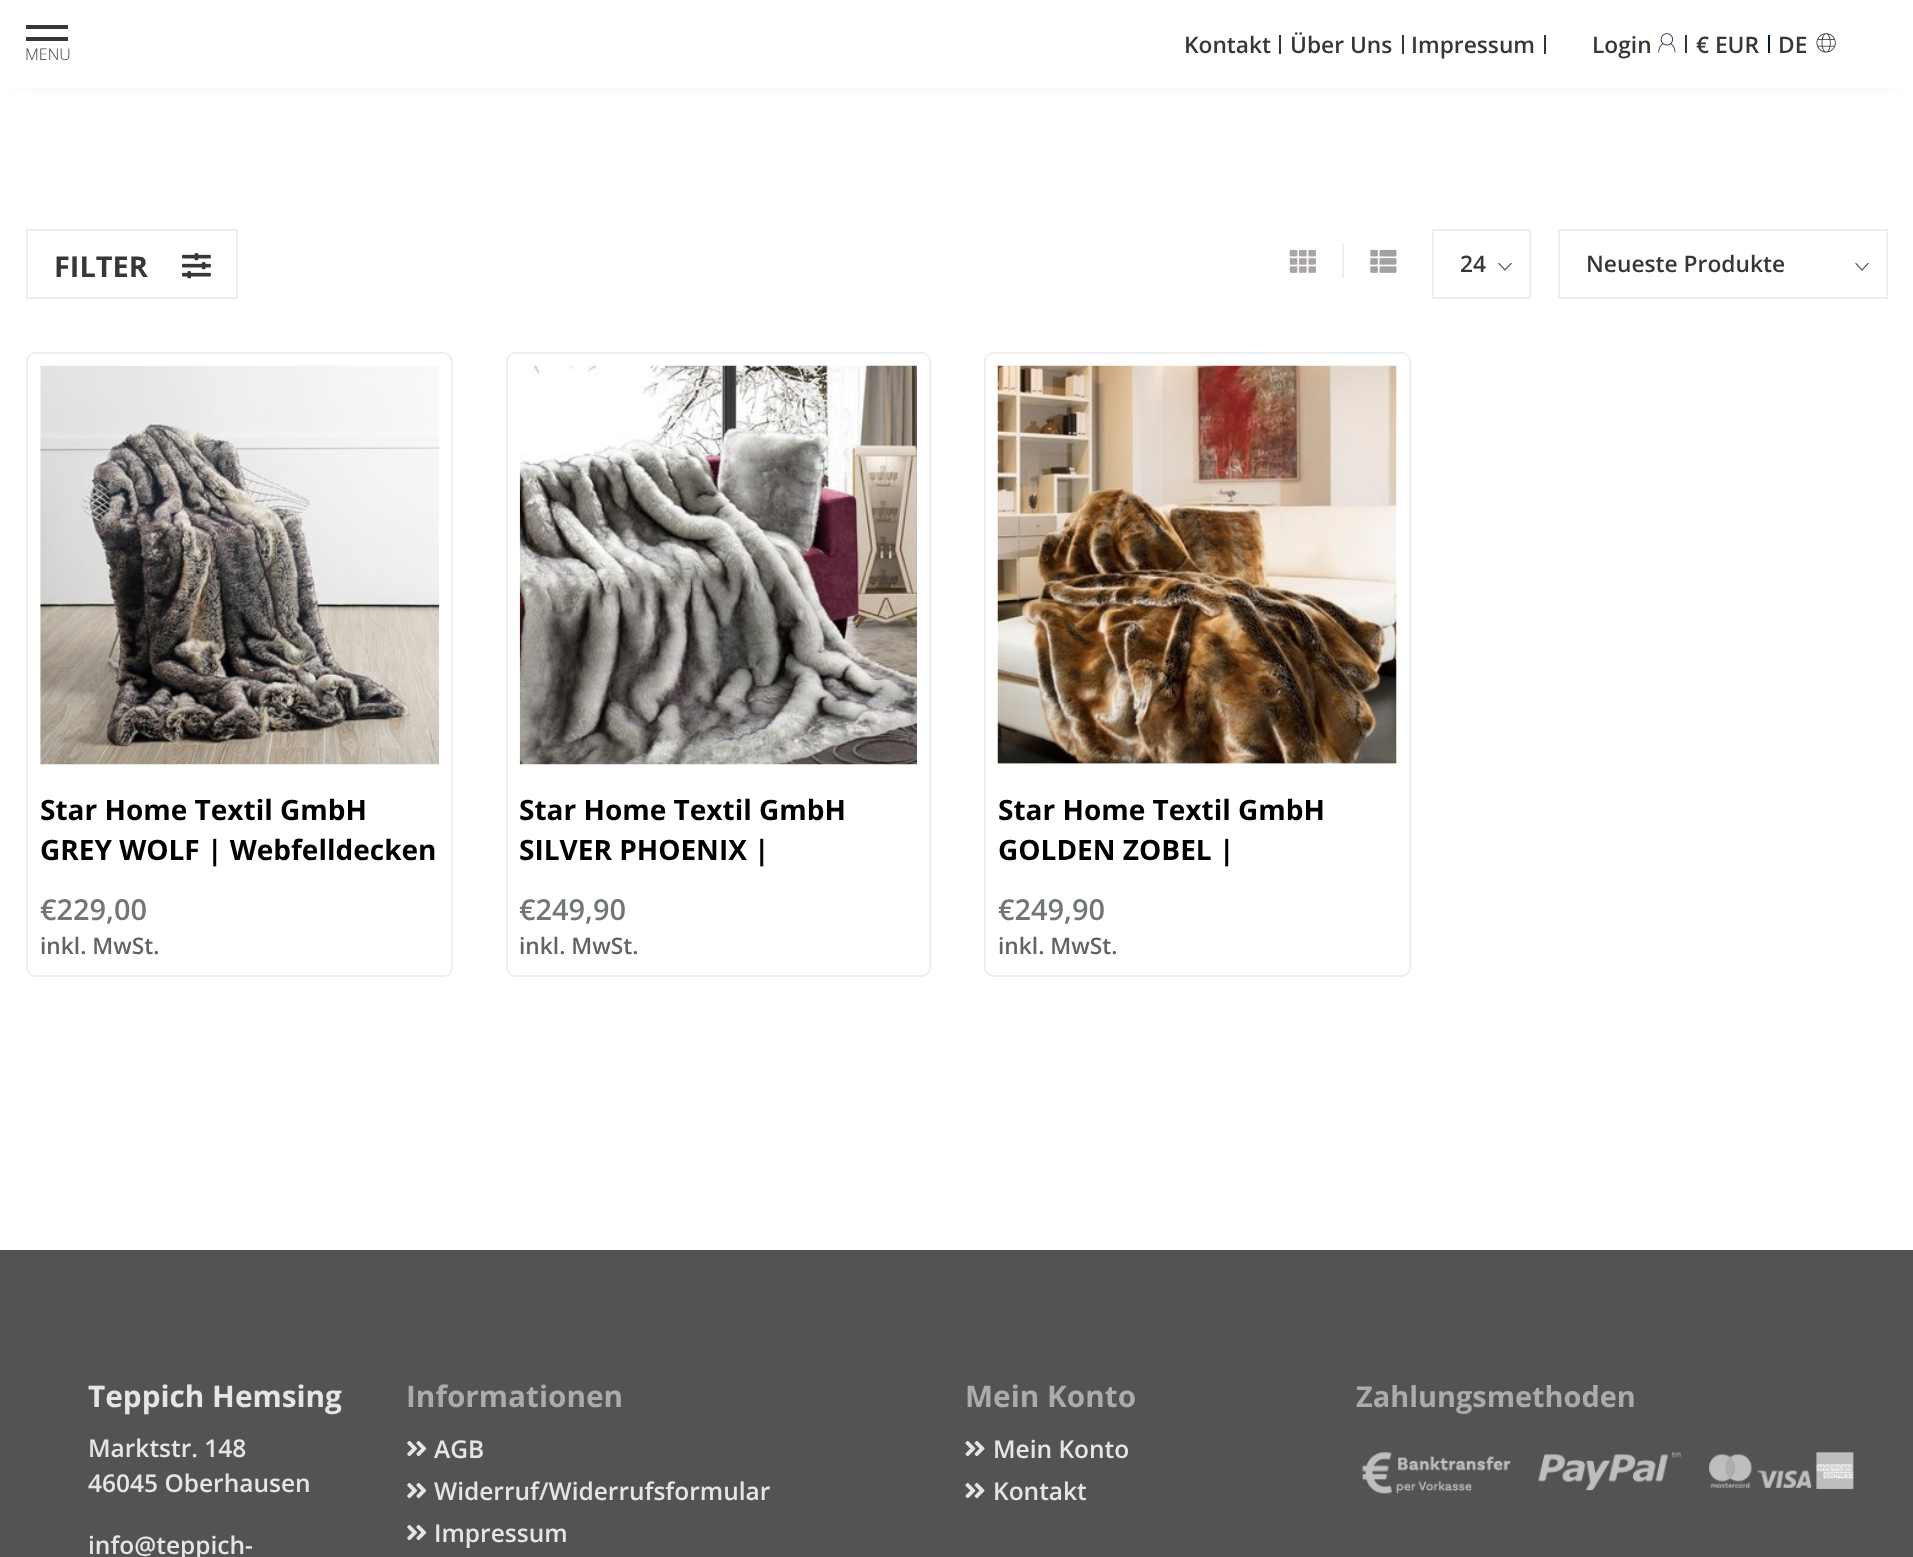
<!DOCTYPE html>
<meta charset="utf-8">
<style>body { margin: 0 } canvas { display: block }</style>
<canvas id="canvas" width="1913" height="1557"></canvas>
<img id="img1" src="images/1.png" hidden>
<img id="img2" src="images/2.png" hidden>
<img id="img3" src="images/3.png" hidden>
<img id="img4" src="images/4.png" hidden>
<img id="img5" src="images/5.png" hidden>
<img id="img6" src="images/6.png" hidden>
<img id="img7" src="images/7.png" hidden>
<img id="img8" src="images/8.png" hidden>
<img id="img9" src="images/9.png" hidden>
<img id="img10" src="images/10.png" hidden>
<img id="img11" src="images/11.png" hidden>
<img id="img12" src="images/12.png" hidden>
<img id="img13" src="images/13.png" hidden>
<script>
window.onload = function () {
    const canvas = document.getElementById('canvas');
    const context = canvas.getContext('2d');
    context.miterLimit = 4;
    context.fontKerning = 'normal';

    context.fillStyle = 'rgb(255, 255, 255)';
    context.fillRect(0, 0, 1913, 1557);
    context.fillStyle = 'rgba(0, 0, 0, 0.8)';
    context.filter = 'blur(14px)';
    context.beginPath();
    context.rect(23, 23, 1869, 42);
    context.fill();
    context.filter = 'none';
    context.fillStyle = 'rgb(255, 255, 255)';
    context.fillRect(0, 0, 1913, 88);
    context.fillStyle = 'rgb(56, 55, 55)';
    context.fillRect(26, 25, 42, 4);
    context.fillRect(26, 37, 42, 4);
    context.fillRect(1279, 35, 2, 19);
    context.fillRect(1402, 35, 2, 19);
    context.fillRect(1544, 35, 2, 19);
    context.drawImage(document.getElementById('img1'), 1658, 33, 18, 20);
    context.fillStyle = 'rgb(6, 26, 47)';
    context.fillRect(1768, 35, 2, 18);
    context.fillStyle = 'rgb(56, 55, 55)';
    context.fillRect(1685, 35, 2, 18);
    context.drawImage(document.getElementById('img2'), 1816, 33, 20, 20);
    context.strokeStyle = 'rgb(238, 238, 238)';
    context.lineWidth = 2;
    context.strokeRect(27, 230, 210, 68);
    context.drawImage(document.getElementById('img3'), 182, 253, 29, 26);
    context.fillStyle = 'rgb(238, 238, 238)';
    context.fillRect(1342, 243, 2, 35);
    context.drawImage(document.getElementById('img4'), 1289, 249, 27, 24);
    context.drawImage(document.getElementById('img5'), 1370, 249, 27, 24);
    context.save();
    context.beginPath();
    context.rect(1498, 263, 14, 8);
    context.clip();
    context.beginPath();
    context.moveTo(1511.5, 263);
    context.lineTo(1505, 270);
    context.lineTo(1498.5, 263);
    context.strokeStyle = 'rgb(102, 102, 102)';
    context.lineWidth = 1.3;
    context.stroke();
    context.restore();
    context.strokeRect(1433, 230, 97, 68);
    context.save();
    context.beginPath();
    context.rect(1855, 263, 14, 8);
    context.clip();
    context.beginPath();
    context.moveTo(1868.5, 263);
    context.lineTo(1862, 270);
    context.lineTo(1855.5, 263);
    context.strokeStyle = 'rgb(102, 102, 102)';
    context.lineWidth = 1.3;
    context.stroke();
    context.restore();
    context.strokeRect(1559, 230, 328, 68);
    context.beginPath();
    context.roundRect(27, 353, 425, 623, 8);
    context.stroke();
    context.drawImage(document.getElementById('img6'), 40, 365, 400, 400);
    context.beginPath();
    context.roundRect(507, 353, 423, 623, 8);
    context.stroke();
    context.drawImage(document.getElementById('img7'), 519, 365, 398, 400);
    context.beginPath();
    context.roundRect(985, 353, 425, 623, 8);
    context.stroke();
    context.drawImage(document.getElementById('img8'), 997, 365, 400, 400);
    context.fillStyle = 'rgb(83, 83, 83)';
    context.fillRect(0, 1250, 1913, 307);
    context.drawImage(document.getElementById('img9'), 407, 1440, 20, 17);
    context.drawImage(document.getElementById('img9'), 407, 1482, 20, 17);
    context.drawImage(document.getElementById('img9'), 407, 1524, 20, 17);
    context.drawImage(document.getElementById('img10'), 965, 1440, 20, 17);
    context.drawImage(document.getElementById('img10'), 965, 1482, 20, 17);
    context.drawImage(document.getElementById('img11'), 1362, 1452, 149, 42);
    context.drawImage(document.getElementById('img12'), 1538, 1452, 143, 39);
    context.drawImage(document.getElementById('img13'), 1709, 1452, 145, 38);
    context.font = '300 16px Open Sans';
    context.fillStyle = 'rgb(56, 55, 55)';
    context.fillText('MENU', 25, 60);
    context.font = '600 22.75px Open Sans';
    context.fillText('Kontakt', 1184, 53);
    context.fillText('Über Uns', 1290, 53);
    context.fillText('Impressum', 1411, 53);
    context.fillText('Login', 1592, 53);
    context.fillText('€ EUR', 1696, 53);
    context.fillText('DE', 1778, 53);
    context.font = 'bold 28.9px Open Sans';
    context.fillText('FILTER', 54, 277);
    context.font = '600 22.75px Open Sans';
    context.fillText('24', 1460, 272);
    context.fillText('Neueste Produkte', 1586, 272);
    context.font = 'bold 28px Open Sans';
    context.fillStyle = 'rgb(0, 0, 0)';
    context.fillText('Star Home Textil GmbH', 40, 820);
    context.fillText('GREY WOLF | Webfelldecken', 40, 860);
    context.font = '600 28.9px Open Sans';
    context.fillStyle = 'rgb(113, 118, 121)';
    context.fillText('€229,00', 40, 920);
    context.font = '600 22.75px Open Sans';
    context.fillStyle = 'rgb(99, 99, 99)';
    context.fillText('inkl. MwSt.', 40, 954);
    context.font = 'bold 28px Open Sans';
    context.fillStyle = 'rgb(0, 0, 0)';
    context.fillText('Star Home Textil GmbH', 519, 820);
    context.fillText('SILVER PHOENIX |', 519, 860);
    context.font = '600 28.9px Open Sans';
    context.fillStyle = 'rgb(113, 118, 121)';
    context.fillText('€249,90', 519, 920);
    context.font = '600 22.75px Open Sans';
    context.fillStyle = 'rgb(99, 99, 99)';
    context.fillText('inkl. MwSt.', 519, 954);
    context.font = 'bold 28px Open Sans';
    context.fillStyle = 'rgb(0, 0, 0)';
    context.fillText('Star Home Textil GmbH', 998, 820);
    context.fillText('GOLDEN ZOBEL |', 998, 860);
    context.font = '600 28.9px Open Sans';
    context.fillStyle = 'rgb(113, 118, 121)';
    context.fillText('€249,90', 998, 920);
    context.font = '600 22.75px Open Sans';
    context.fillStyle = 'rgb(99, 99, 99)';
    context.fillText('inkl. MwSt.', 998, 954);
    context.font = 'bold 29.75px Open Sans';
    context.fillStyle = 'rgb(231, 229, 228)';
    context.fillText('Teppich Hemsing', 88, 1407);
    context.font = '600 24.5px Open Sans';
    context.fillText('Marktstr. 148', 88, 1457);
    context.fillText('46045 Oberhausen', 88, 1492);
    context.fillText('info@teppich-', 88, 1554);
    context.font = 'bold 29.75px Open Sans';
    context.fillStyle = 'rgb(172, 170, 172)';
    context.fillText('Informationen', 406, 1407);
    context.font = '600 24.5px Open Sans';
    context.fillStyle = 'rgb(231, 229, 228)';
    context.fillText('AGB', 434, 1458);
    context.fillText('Widerruf/Widerrufsformular', 434, 1500);
    context.fillText('Impressum', 434, 1542);
    context.font = 'bold 29.75px Open Sans';
    context.fillStyle = 'rgb(172, 170, 172)';
    context.fillText('Mein Konto', 965, 1407);
    context.font = '600 24.5px Open Sans';
    context.fillStyle = 'rgb(231, 229, 228)';
    context.fillText('Mein Konto', 993, 1458);
    context.fillText('Kontakt', 993, 1500);
    context.font = 'bold 28.9px Open Sans';
    context.fillStyle = 'rgb(172, 170, 172)';
    context.fillText('Zahlungsmethoden', 1356, 1407);
};
</script>
